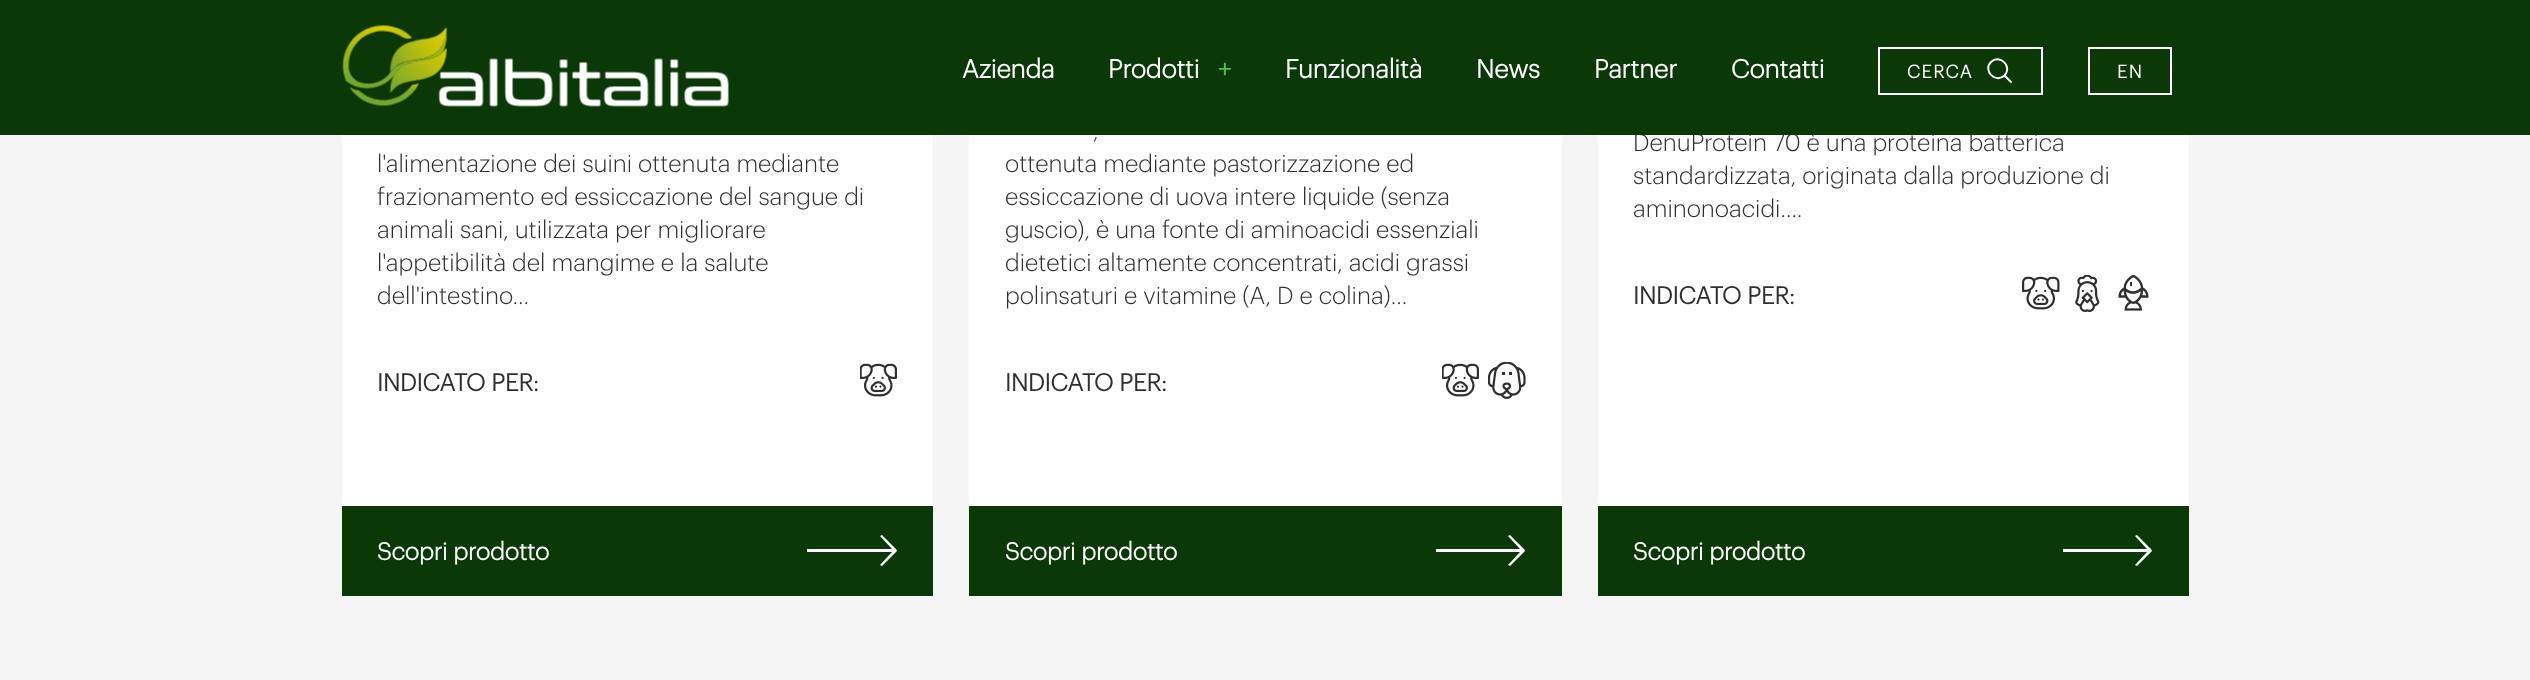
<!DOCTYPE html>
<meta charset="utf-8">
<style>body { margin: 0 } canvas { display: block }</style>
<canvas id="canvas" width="2530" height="680"></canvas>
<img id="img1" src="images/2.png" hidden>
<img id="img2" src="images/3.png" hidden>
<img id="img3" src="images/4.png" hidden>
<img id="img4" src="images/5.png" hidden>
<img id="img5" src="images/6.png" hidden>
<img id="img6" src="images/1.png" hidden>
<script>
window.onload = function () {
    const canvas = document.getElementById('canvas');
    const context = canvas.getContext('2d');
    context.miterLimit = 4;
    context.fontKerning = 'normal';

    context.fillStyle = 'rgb(245, 245, 245)';
    context.fillRect(0, 0, 2530, 680);
    context.fillStyle = 'rgb(255, 255, 255)';
    context.fillRect(342, 135, 591, 371);
    context.drawImage(document.getElementById('img1'), 860, 363, 37, 34);
    context.fillStyle = 'rgb(10, 56, 7)';
    context.fillRect(342, 506, 591, 90);
    context.fillStyle = 'rgb(255, 255, 255)';
    context.beginPath();
    context.moveTo(896, 549);
    context.lineTo(882, 535);
    context.lineTo(880, 536);
    context.lineTo(892, 549);
    context.lineTo(807, 549);
    context.lineTo(807, 552);
    context.lineTo(892, 552);
    context.lineTo(880, 565);
    context.lineTo(882, 566);
    context.lineTo(897, 551);
    context.closePath();
    context.fill();
    context.fillRect(969, 135, 593, 371);
    context.drawImage(document.getElementById('img1'), 1442, 363, 37, 34);
    context.drawImage(document.getElementById('img2'), 1488, 362, 38, 37);
    context.fillStyle = 'rgb(10, 56, 7)';
    context.fillRect(969, 506, 593, 90);
    context.fillStyle = 'rgb(255, 255, 255)';
    context.beginPath();
    context.moveTo(1524, 549);
    context.lineTo(1510, 535);
    context.lineTo(1508, 536);
    context.lineTo(1520, 549);
    context.lineTo(1436, 549);
    context.lineTo(1436, 552);
    context.lineTo(1520, 552);
    context.lineTo(1508, 565);
    context.lineTo(1510, 566);
    context.lineTo(1525, 551);
    context.closePath();
    context.fill();
    context.fillRect(1598, 135, 591, 371);
    context.drawImage(document.getElementById('img3'), 2022, 276, 38, 34);
    context.drawImage(document.getElementById('img4'), 2075, 275, 25, 37);
    context.drawImage(document.getElementById('img5'), 2118, 275, 31, 36);
    context.fillStyle = 'rgb(10, 56, 7)';
    context.fillRect(1598, 506, 591, 90);
    context.fillStyle = 'rgb(255, 255, 255)';
    context.beginPath();
    context.moveTo(2151, 549);
    context.lineTo(2137, 535);
    context.lineTo(2135, 536);
    context.lineTo(2147, 549);
    context.lineTo(2063, 549);
    context.lineTo(2063, 552);
    context.lineTo(2147, 552);
    context.lineTo(2135, 565);
    context.lineTo(2137, 566);
    context.lineTo(2152, 551);
    context.closePath();
    context.fill();
    context.font = '300 24px Graphik';
    context.fillStyle = 'rgb(47, 47, 47)';
    context.fillText('l\'alimentazione dei suini ottenuta mediante', 377, 172);
    context.fillText('frazionamento ed essiccazione del sangue di', 377, 205);
    context.fillText('animali sani, utilizzata per migliorare', 377, 238);
    context.fillText('l\'appetibilità del mangime e la salute', 377, 271);
    context.fillText('dell\'intestino...', 377, 304);
    context.font = 'bold 24px Graphik';
    context.fillText('INDICATO PER:', 377, 391);
    context.fillStyle = 'rgb(255, 255, 255)';
    context.fillText('Scopri prodotto', 377, 560);
    context.font = '300 24px Graphik';
    context.fillStyle = 'rgb(47, 47, 47)';
    context.fillText(',', 1093, 139);
    context.fillText('ottenuta mediante pastorizzazione ed', 1005, 172);
    context.fillText('essiccazione di uova intere liquide (senza', 1005, 205);
    context.fillText('guscio), è una fonte di aminoacidi essenziali', 1005, 238);
    context.fillText('dietetici altamente concentrati, acidi grassi', 1005, 271);
    context.fillText('polinsaturi e vitamine (A, D e colina)...', 1005, 304);
    context.font = 'bold 24px Graphik';
    context.fillText('INDICATO PER:', 1005, 391);
    context.fillStyle = 'rgb(255, 255, 255)';
    context.fillText('Scopri prodotto', 1005, 560);
    context.font = '300 24px Graphik';
    context.fillStyle = 'rgb(47, 47, 47)';
    context.fillText('DenuProtein 70 è una proteina batterica', 1633, 151);
    context.fillStyle = 'rgb(10, 56, 7)';
    context.fillRect(0, 0, 2530, 135);
    context.strokeStyle = 'rgb(255, 255, 255)';
    context.lineWidth = 2;
    context.strokeRect(2089, 48, 82, 46);
    context.letterSpacing = '1.5px';
    context.font = 'bold 18px Graphik';
    context.fillStyle = 'rgb(255, 255, 255)';
    context.fillText('EN', 2117, 78);
    context.strokeRect(1879, 48, 163, 46);
    context.beginPath();
    context.moveTo(2011, 82);
    context.lineTo(2004.5, 75.5);
    context.moveTo(2004.5, 75.5);
    context.bezierCurveTo(2013, 66.5, 1999.5, 53.5, 1991, 62);
    context.bezierCurveTo(1982.5, 70.5, 1995.5, 84, 2004.5, 75.5);
    context.closePath();
    context.lineWidth = 1.9;
    context.lineCap = 'round';
    context.lineJoin = 'round';
    context.stroke();
    context.fillText('CERCA', 1907, 78);
    context.letterSpacing = '0px';
    context.font = 'bold 25.5px Graphik';
    context.fillText('Contatti', 1731, 78);
    context.fillText('Partner', 1594, 78);
    context.fillText('News', 1476, 78);
    context.fillText('Funzionalità', 1285, 78);
    context.fillText('Azienda', 962, 78);
    context.fillText('Prodotti', 1108, 78);
    context.fillStyle = 'rgb(89, 188, 72)';
    context.fillText('+', 1218, 78);
    context.drawImage(document.getElementById('img6'), 342, 25, 387, 82);
    context.font = '300 24px Graphik';
    context.fillStyle = 'rgb(47, 47, 47)';
    context.fillText('standardizzata, originata dalla produzione di', 1633, 184);
    context.fillText('aminonoacidi....', 1633, 217);
    context.font = 'bold 24px Graphik';
    context.fillText('INDICATO PER:', 1633, 304);
    context.fillStyle = 'rgb(255, 255, 255)';
    context.fillText('Scopri prodotto', 1633, 560);
};
</script>
